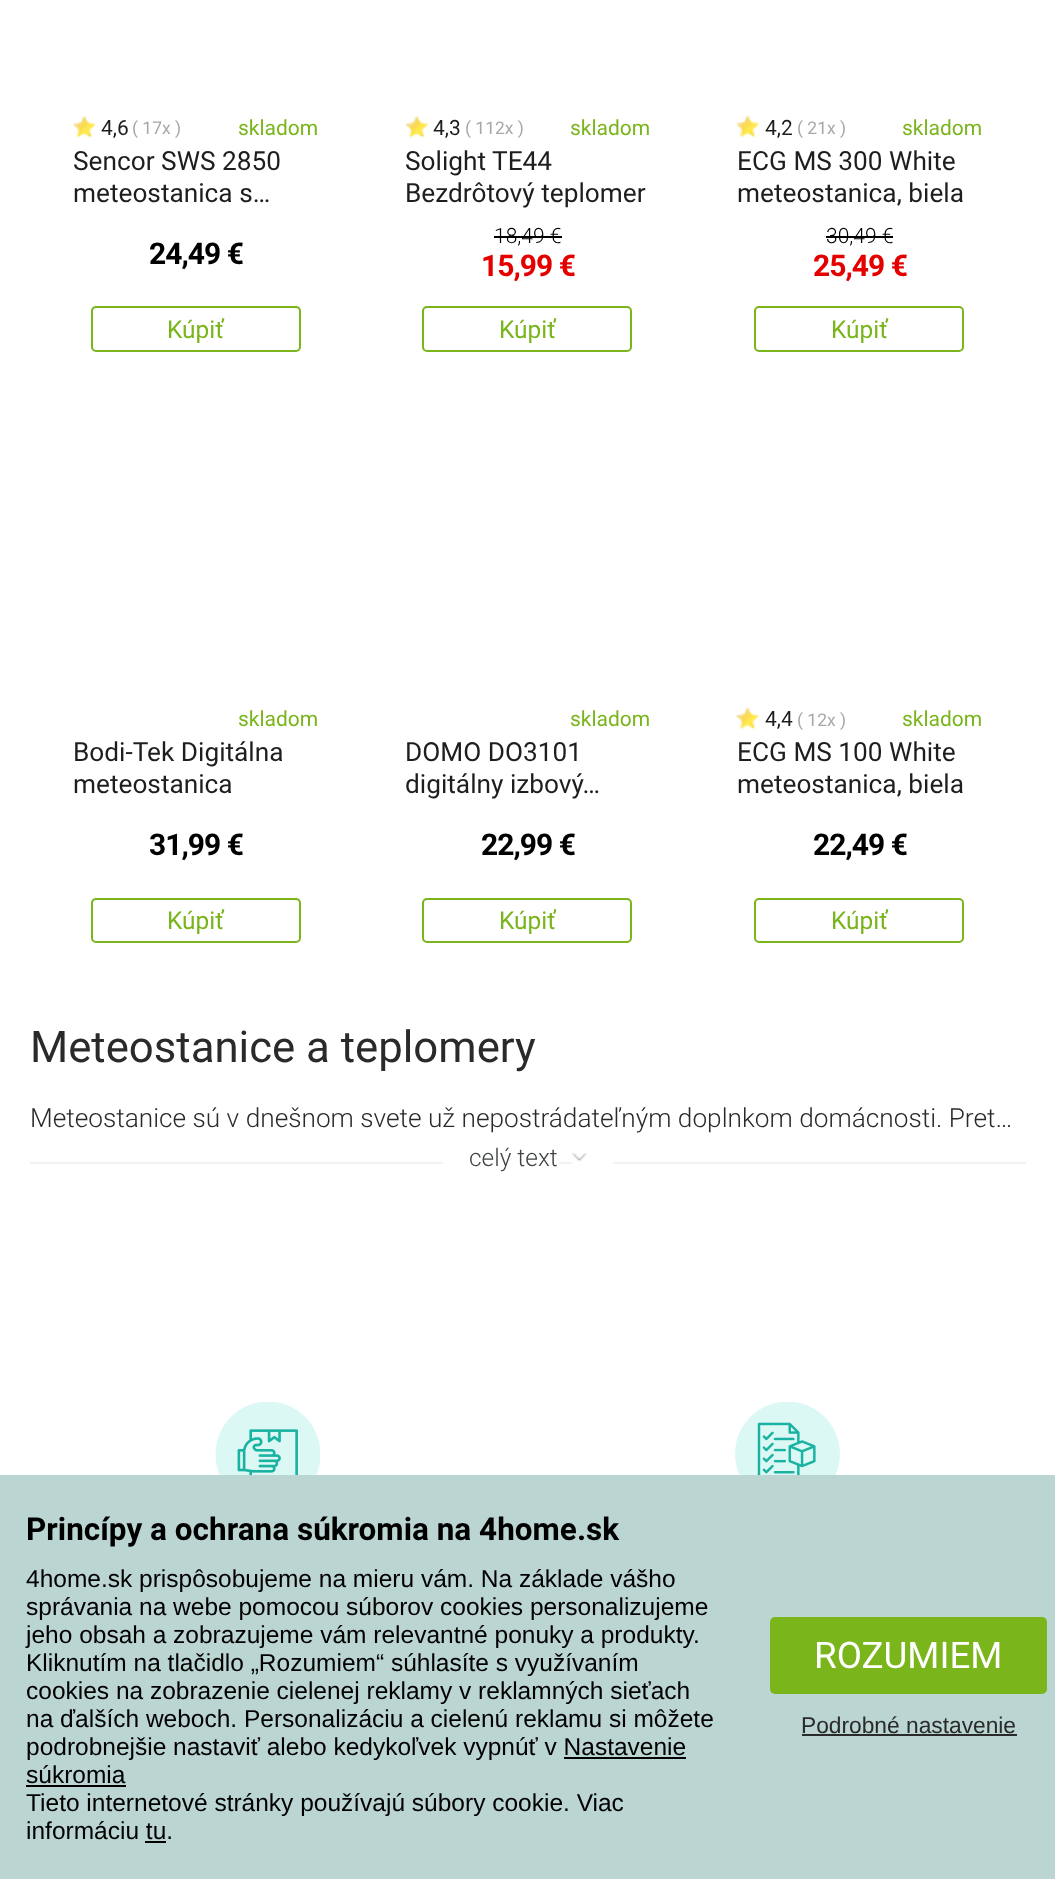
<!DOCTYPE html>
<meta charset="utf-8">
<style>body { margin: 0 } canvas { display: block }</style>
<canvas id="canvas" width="1055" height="1879"></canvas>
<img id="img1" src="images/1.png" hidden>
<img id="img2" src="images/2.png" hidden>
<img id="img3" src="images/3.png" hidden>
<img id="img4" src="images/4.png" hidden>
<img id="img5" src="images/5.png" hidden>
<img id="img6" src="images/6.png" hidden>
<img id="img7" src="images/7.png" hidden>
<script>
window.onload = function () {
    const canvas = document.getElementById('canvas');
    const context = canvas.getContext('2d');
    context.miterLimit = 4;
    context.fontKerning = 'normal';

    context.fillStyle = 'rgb(255, 255, 255)';
    context.fillRect(0, 0, 1055, 1879);
    context.drawImage(document.getElementById('img1'), 73, 115, 24, 24);
    context.beginPath();
    context.roundRect(92, 307, 208, 44, 4);
    context.strokeStyle = 'rgb(122, 181, 28)';
    context.lineWidth = 2;
    context.stroke();
    context.drawImage(document.getElementById('img2'), 406, 115, 23, 24);
    context.fillStyle = 'rgb(0, 0, 0)';
    context.fillRect(494, 236, 68, 2);
    context.beginPath();
    context.roundRect(423, 307, 208, 44, 4);
    context.stroke();
    context.drawImage(document.getElementById('img3'), 736, 115, 24, 23);
    context.fillRect(826, 236, 67, 2);
    context.beginPath();
    context.roundRect(755, 307, 208, 44, 4);
    context.stroke();
    context.beginPath();
    context.roundRect(92, 899, 208, 43, 4);
    context.stroke();
    context.beginPath();
    context.roundRect(423, 899, 208, 43, 4);
    context.stroke();
    context.drawImage(document.getElementById('img4'), 736, 706, 24, 24);
    context.beginPath();
    context.roundRect(755, 899, 208, 43, 4);
    context.stroke();
    context.fillStyle = 'rgb(242, 242, 242)';
    context.fillRect(30, 1162, 996, 2);
    context.fillStyle = 'rgb(255, 255, 255)';
    context.fillRect(443, 1162, 115, 2);
    context.fillRect(572, 1162, 41, 2);
    context.drawImage(document.getElementById('img5'), 572, 1153, 15, 9);
    context.drawImage(document.getElementById('img6'), 215, 1402, 105, 73);
    context.drawImage(document.getElementById('img7'), 735, 1402, 105, 73);
    context.fillStyle = 'rgb(187, 213, 210)';
    context.fillRect(0, 1475, 1055, 404);
    context.fillStyle = 'rgb(0, 0, 0)';
    context.fillRect(564, 1757, 122, 2);
    context.fillRect(26, 1785, 100, 2);
    context.fillRect(145, 1841, 21, 2);
    context.fillStyle = 'rgb(122, 181, 28)';
    context.beginPath();
    context.roundRect(770, 1617, 277, 77, 5);
    context.fill();
    context.fillStyle = 'rgb(42, 42, 42)';
    context.fillRect(802, 1734, 215, 2);
    context.font = '21px Roboto';
    context.fillStyle = 'rgb(30, 30, 30)';
    context.fillText('4,6', 101, 135);
    context.font = '17.5px Roboto';
    context.fillStyle = 'rgb(168, 168, 168)';
    context.fillText('( 17x )', 132, 134);
    context.font = '21px Roboto';
    context.fillStyle = 'rgb(122, 181, 28)';
    context.fillText('skladom', 238, 135);
    context.font = '26.25px Roboto';
    context.fillStyle = 'rgb(30, 30, 30)';
    context.fillText('Sencor SWS 2850', 73, 170);
    context.fillText('meteostanica s…', 73, 202);
    context.letterSpacing = '-1px';
    context.font = 'bold 30px Roboto';
    context.fillStyle = 'rgb(0, 0, 0)';
    context.fillText('24,49 €', 149, 264);
    context.letterSpacing = '0px';
    context.font = '24.5px Roboto';
    context.fillStyle = 'rgb(122, 181, 28)';
    context.fillText('Kúpiť', 167, 338);
    context.font = '21px Roboto';
    context.fillStyle = 'rgb(30, 30, 30)';
    context.fillText('4,3', 433, 135);
    context.font = '17.5px Roboto';
    context.fillStyle = 'rgb(168, 168, 168)';
    context.fillText('( 112x )', 465, 134);
    context.font = '21px Roboto';
    context.fillStyle = 'rgb(122, 181, 28)';
    context.fillText('skladom', 570, 135);
    context.font = '26.25px Roboto';
    context.fillStyle = 'rgb(30, 30, 30)';
    context.fillText('Solight TE44', 405, 170);
    context.fillText('Bezdrôtový teplomer', 405, 202);
    context.font = '300 21px Roboto';
    context.fillStyle = 'rgb(0, 0, 0)';
    context.fillText('18,49 €', 494, 243);
    context.letterSpacing = '-1px';
    context.font = 'bold 30px Roboto';
    context.fillStyle = 'rgb(229, 0, 0)';
    context.fillText('15,99 €', 481, 276);
    context.letterSpacing = '0px';
    context.font = '24.5px Roboto';
    context.fillStyle = 'rgb(122, 181, 28)';
    context.fillText('Kúpiť', 499, 338);
    context.font = '21px Roboto';
    context.fillStyle = 'rgb(30, 30, 30)';
    context.fillText('4,2', 765, 135);
    context.font = '17.5px Roboto';
    context.fillStyle = 'rgb(168, 168, 168)';
    context.fillText('( 21x )', 797, 134);
    context.font = '21px Roboto';
    context.fillStyle = 'rgb(122, 181, 28)';
    context.fillText('skladom', 902, 135);
    context.font = '26.25px Roboto';
    context.fillStyle = 'rgb(30, 30, 30)';
    context.fillText('ECG MS 300 White', 737, 170);
    context.fillText('meteostanica, biela', 737, 202);
    context.font = '300 21px Roboto';
    context.fillStyle = 'rgb(0, 0, 0)';
    context.fillText('30,49 €', 826, 243);
    context.letterSpacing = '-1px';
    context.font = 'bold 30px Roboto';
    context.fillStyle = 'rgb(229, 0, 0)';
    context.fillText('25,49 €', 813, 276);
    context.letterSpacing = '0px';
    context.font = '24.5px Roboto';
    context.fillStyle = 'rgb(122, 181, 28)';
    context.fillText('Kúpiť', 831, 338);
    context.font = '21px Roboto';
    context.fillText('skladom', 238, 726);
    context.font = '26.25px Roboto';
    context.fillStyle = 'rgb(30, 30, 30)';
    context.fillText('Bodi-Tek Digitálna', 73, 761);
    context.fillText('meteostanica', 73, 793);
    context.letterSpacing = '-1px';
    context.font = 'bold 30px Roboto';
    context.fillStyle = 'rgb(0, 0, 0)';
    context.fillText('31,99 €', 149, 855);
    context.letterSpacing = '0px';
    context.font = '24.5px Roboto';
    context.fillStyle = 'rgb(122, 181, 28)';
    context.fillText('Kúpiť', 167, 929);
    context.font = '21px Roboto';
    context.fillText('skladom', 570, 726);
    context.font = '26.25px Roboto';
    context.fillStyle = 'rgb(30, 30, 30)';
    context.fillText('DOMO DO3101', 405, 761);
    context.fillText('digitálny izbový…', 405, 793);
    context.letterSpacing = '-1px';
    context.font = 'bold 30px Roboto';
    context.fillStyle = 'rgb(0, 0, 0)';
    context.fillText('22,99 €', 481, 855);
    context.letterSpacing = '0px';
    context.font = '24.5px Roboto';
    context.fillStyle = 'rgb(122, 181, 28)';
    context.fillText('Kúpiť', 499, 929);
    context.font = '21px Roboto';
    context.fillStyle = 'rgb(30, 30, 30)';
    context.fillText('4,4', 765, 726);
    context.font = '17.5px Roboto';
    context.fillStyle = 'rgb(168, 168, 168)';
    context.fillText('( 12x )', 797, 726);
    context.font = '21px Roboto';
    context.fillStyle = 'rgb(122, 181, 28)';
    context.fillText('skladom', 902, 726);
    context.font = '26.25px Roboto';
    context.fillStyle = 'rgb(30, 30, 30)';
    context.fillText('ECG MS 100 White', 737, 761);
    context.fillText('meteostanica, biela', 737, 793);
    context.letterSpacing = '-1px';
    context.font = 'bold 30px Roboto';
    context.fillStyle = 'rgb(0, 0, 0)';
    context.fillText('22,49 €', 813, 855);
    context.letterSpacing = '0px';
    context.font = '24.5px Roboto';
    context.fillStyle = 'rgb(122, 181, 28)';
    context.fillText('Kúpiť', 831, 929);
    context.font = '43.75px Roboto';
    context.fillStyle = 'rgb(42, 42, 42)';
    context.fillText('Meteostanice a teplomery', 30, 1062);
    context.font = '300 26.25px Roboto';
    context.fillText('Meteostanice sú v dnešnom svete už nepostrádateľným doplnkom domácnosti. Pret…', 30, 1127);
    context.font = '300 24.5px Roboto';
    context.fillStyle = 'rgb(63, 67, 69)';
    context.fillText('celý text', 469, 1166);
    context.font = 'bold 31.5px Roboto';
    context.fillStyle = 'rgb(0, 0, 0)';
    context.fillText('Princípy a ochrana súkromia na 4home.sk', 26, 1540);
    context.font = '24.5px Liberation Sans';
    context.fillText('4home.sk prispôsobujeme na mieru vám. Na základe vášho', 26, 1587);
    context.fillText('správania na webe pomocou súborov cookies personalizujeme', 26, 1615);
    context.fillText('jeho obsah a zobrazujeme vám relevantné ponuky a produkty.', 26, 1643);
    context.fillText('Kliknutím na tlačidlo „Rozumiem“ súhlasíte s využívaním', 26, 1671);
    context.fillText('cookies na zobrazenie cielenej reklamy v reklamných sieťach', 26, 1699);
    context.fillText('na ďalších weboch. Personalizáciu a cielenú reklamu si môžete', 26, 1727);
    context.fillText('podrobnejšie nastaviť alebo kedykoľvek vypnúť v Nastavenie', 26, 1755);
    context.fillText('súkromia', 26, 1783);
    context.fillText('Tieto internetové stránky používajú súbory cookie. Viac', 26, 1811);
    context.fillText('informáciu tu.', 26, 1839);
    context.font = '36.75px Roboto';
    context.fillStyle = 'rgb(255, 255, 255)';
    context.fillText('ROZUMIEM', 814, 1668);
    context.font = '22.75px Liberation Sans';
    context.fillStyle = 'rgb(42, 42, 42)';
    context.fillText('Podrobné nastavenie', 801, 1733);
};
</script>
